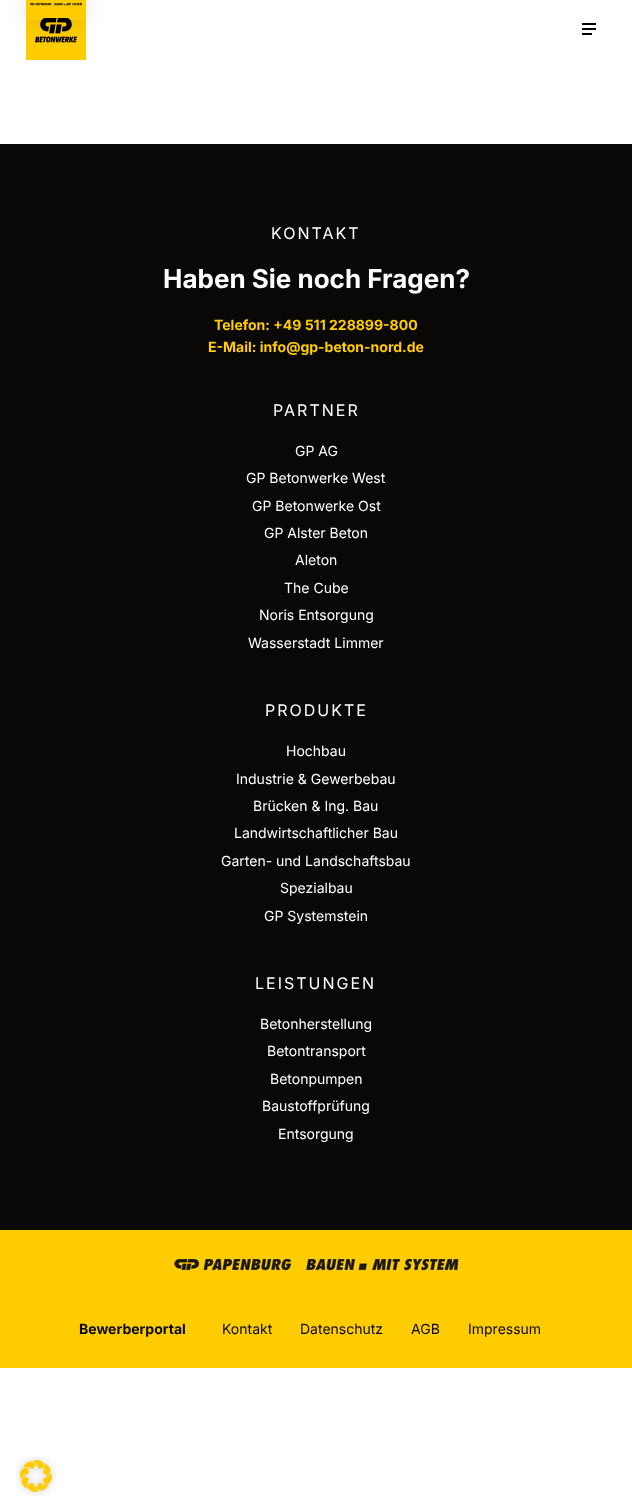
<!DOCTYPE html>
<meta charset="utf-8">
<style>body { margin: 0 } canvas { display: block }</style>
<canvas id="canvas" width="632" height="1512"></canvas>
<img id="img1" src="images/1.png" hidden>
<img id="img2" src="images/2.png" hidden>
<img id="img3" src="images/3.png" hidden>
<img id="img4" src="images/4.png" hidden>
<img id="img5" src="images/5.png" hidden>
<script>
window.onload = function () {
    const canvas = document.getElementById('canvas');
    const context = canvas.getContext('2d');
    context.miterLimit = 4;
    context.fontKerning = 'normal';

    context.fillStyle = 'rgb(255, 255, 255)';
    context.fillRect(0, 0, 632, 1512);
    context.fillStyle = 'rgb(255, 204, 0)';
    context.fillRect(26, 0, 60, 60);
    context.save();
    context.beginPath();
    context.moveTo(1, 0);
    context.lineTo(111, 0);
    context.lineTo(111, 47);
    context.lineTo(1, 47);
    context.closePath();
    context.moveTo(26, -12);
    context.lineTo(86, -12);
    context.lineTo(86, 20);
    context.lineTo(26, 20);
    context.closePath();
    context.clip('evenodd');
    context.fillStyle = 'rgba(0, 0, 0, 0.1)';
    context.filter = 'blur(8px)';
    context.beginPath();
    context.rect(26, -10, 60, 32);
    context.fill();
    context.filter = 'none';
    context.restore();
    context.drawImage(document.getElementById('img1'), 30, 3, 52, 3);
    context.drawImage(document.getElementById('img2'), 35, 18, 42, 25);
    context.drawImage(document.getElementById('img3'), 582, 23, 14, 12);
    context.fillStyle = 'rgb(9, 8, 6)';
    context.fillRect(0, 144, 632, 1086);
    context.fillStyle = 'rgb(255, 204, 0)';
    context.fillRect(0, 1230, 632, 138);
    context.drawImage(document.getElementById('img4'), 174, 1259, 285, 12);
    context.drawImage(document.getElementById('img5'), 16, 1456, 40, 40);
    context.letterSpacing = '2px';
    context.font = '16px Inter';
    context.fillStyle = 'rgb(255, 255, 255)';
    context.fillText('KONTAKT', 271, 239);
    context.letterSpacing = '0px';
    context.font = 'bold 26px Inter';
    context.fillText('Haben Sie noch Fragen?', 163, 288);
    context.font = 'bold 14px Inter';
    context.fillStyle = 'rgb(255, 204, 0)';
    context.fillText('Telefon: +49 511 228899-800', 214, 330);
    context.fillText('E-Mail: info@gp-beton-nord.de', 208, 352);
    context.letterSpacing = '2px';
    context.font = '16px Inter';
    context.fillStyle = 'rgb(255, 255, 255)';
    context.fillText('PARTNER', 273, 416);
    context.letterSpacing = '0px';
    context.font = '14px Inter';
    context.fillText('GP AG', 295, 456);
    context.fillText('GP Betonwerke West', 246, 483);
    context.fillText('GP Betonwerke Ost', 252, 511);
    context.fillText('GP Alster Beton', 264, 538);
    context.fillText('Aleton', 295, 565);
    context.fillText('The Cube', 284, 593);
    context.fillText('Noris Entsorgung', 259, 620);
    context.fillText('Wasserstadt Limmer', 248, 648);
    context.letterSpacing = '2px';
    context.font = '16px Inter';
    context.fillText('PRODUKTE', 265, 716);
    context.letterSpacing = '0px';
    context.font = '14px Inter';
    context.fillText('Hochbau', 286, 756);
    context.fillText('Industrie & Gewerbebau', 236, 784);
    context.fillText('Brücken & Ing. Bau', 253, 811);
    context.fillText('Landwirtschaftlicher Bau', 234, 838);
    context.fillText('Garten- und Landschaftsbau', 221, 866);
    context.fillText('Spezialbau', 280, 893);
    context.fillText('GP Systemstein', 264, 921);
    context.letterSpacing = '2px';
    context.font = '16px Inter';
    context.fillText('LEISTUNGEN', 255, 989);
    context.letterSpacing = '0px';
    context.font = '14px Inter';
    context.fillText('Betonherstellung', 260, 1029);
    context.fillText('Betontransport', 267, 1056);
    context.fillText('Betonpumpen', 270, 1084);
    context.fillText('Baustoffprüfung', 262, 1111);
    context.fillText('Entsorgung', 278, 1139);
    context.font = 'bold 14px Inter';
    context.fillStyle = 'rgb(9, 8, 6)';
    context.fillText('Bewerberportal', 79, 1334);
    context.font = '14px Inter';
    context.fillText('Kontakt', 222, 1334);
    context.fillText('Datenschutz', 300, 1334);
    context.fillText('AGB', 411, 1334);
    context.fillText('Impressum', 468, 1334);
};
</script>
